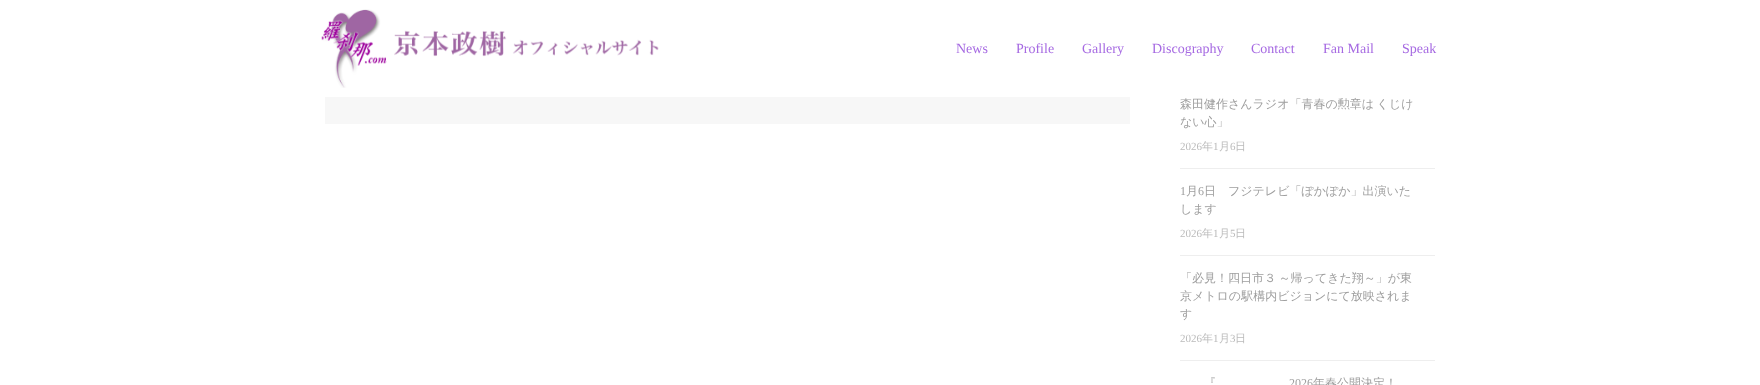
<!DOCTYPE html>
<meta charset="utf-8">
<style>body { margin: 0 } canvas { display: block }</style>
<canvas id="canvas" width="1760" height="385"></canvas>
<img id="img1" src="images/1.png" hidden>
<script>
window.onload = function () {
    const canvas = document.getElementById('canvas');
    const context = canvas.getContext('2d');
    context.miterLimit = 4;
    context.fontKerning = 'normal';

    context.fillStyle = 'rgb(255, 255, 255)';
    context.fillRect(0, 0, 1760, 385);
    context.drawImage(document.getElementById('img1'), 321, 9, 338, 79);
    context.fillStyle = 'rgb(247, 247, 247)';
    context.fillRect(325, 97, 805, 27);
    context.fillStyle = 'rgb(238, 238, 238)';
    context.fillRect(1180, 168, 255, 1);
    context.fillRect(1180, 255, 255, 1);
    context.fillRect(1180, 360, 255, 1);
    context.font = '14px Liberation Serif';
    context.fillStyle = 'rgb(166, 106, 226)';
    context.fillText('News', 956, 53);
    context.fillText('Profile', 1016, 53);
    context.fillText('Gallery', 1082, 53);
    context.fillText('Discography', 1152, 53);
    context.fillText('Contact', 1251, 53);
    context.fillText('Fan Mail', 1323, 53);
    context.fillText('Speak', 1402, 53);
    context.wordSpacing = '-1px';
    context.font = '500 12px WenQuanYi Zen Hei';
    context.fillStyle = 'rgb(158, 158, 158)';
    context.fillText('森田健作さんラジオ「青春の勲章は くじけ', 1180, 108);
    context.wordSpacing = '0px';
    context.fillText('ない心」', 1180, 126);
    context.font = '11px Liberation Serif';
    context.fillStyle = 'rgb(187, 187, 187)';
    context.fillText('2026', 1180, 150);
    context.font = '500 11px WenQuanYi Zen Hei';
    context.fillText('年', 1202, 150);
    context.font = '11px Liberation Serif';
    context.fillText('1', 1213, 150);
    context.font = '500 11px WenQuanYi Zen Hei';
    context.fillText('月', 1219, 150);
    context.font = '11px Liberation Serif';
    context.fillText('6', 1230, 150);
    context.font = '500 11px WenQuanYi Zen Hei';
    context.fillText('日', 1235, 150);
    context.font = '12px Liberation Serif';
    context.fillStyle = 'rgb(158, 158, 158)';
    context.fillText('1', 1180, 195);
    context.font = '500 12px WenQuanYi Zen Hei';
    context.fillText('月', 1186, 195);
    context.font = '12px Liberation Serif';
    context.fillText('6', 1198, 195);
    context.font = '500 12px WenQuanYi Zen Hei';
    context.fillText('日　フジテレビ「ぽかぽか」出演いた', 1204, 195);
    context.fillText('します', 1180, 213);
    context.font = '11px Liberation Serif';
    context.fillStyle = 'rgb(187, 187, 187)';
    context.fillText('2026', 1180, 237);
    context.font = '500 11px WenQuanYi Zen Hei';
    context.fillText('年', 1202, 237);
    context.font = '11px Liberation Serif';
    context.fillText('1', 1213, 237);
    context.font = '500 11px WenQuanYi Zen Hei';
    context.fillText('月', 1219, 237);
    context.font = '11px Liberation Serif';
    context.fillText('5', 1230, 237);
    context.font = '500 11px WenQuanYi Zen Hei';
    context.fillText('日', 1235, 237);
    context.wordSpacing = '-1px';
    context.font = '500 12px WenQuanYi Zen Hei';
    context.fillStyle = 'rgb(158, 158, 158)';
    context.fillText('「必見！四日市３ ～帰ってきた翔～」が東', 1180, 282);
    context.wordSpacing = '0px';
    context.fillText('京メトロの駅構内ビジョンにて放映されま', 1180, 300);
    context.fillText('す', 1180, 318);
    context.font = '11px Liberation Serif';
    context.fillStyle = 'rgb(187, 187, 187)';
    context.fillText('2026', 1180, 342);
    context.font = '500 11px WenQuanYi Zen Hei';
    context.fillText('年', 1202, 342);
    context.font = '11px Liberation Serif';
    context.fillText('1', 1213, 342);
    context.font = '500 11px WenQuanYi Zen Hei';
    context.fillText('月', 1219, 342);
    context.font = '11px Liberation Serif';
    context.fillText('3', 1230, 342);
    context.font = '500 11px WenQuanYi Zen Hei';
    context.fillText('日', 1235, 342);
    context.font = '500 12px WenQuanYi Zen Hei';
    context.fillStyle = 'rgb(158, 158, 158)';
    context.fillText('『', 1204, 387);
    context.font = '12px Liberation Serif';
    context.fillText('2026', 1289, 387);
    context.font = '500 12px WenQuanYi Zen Hei';
    context.fillText('年春公開決定！', 1313, 387);
};
</script>
